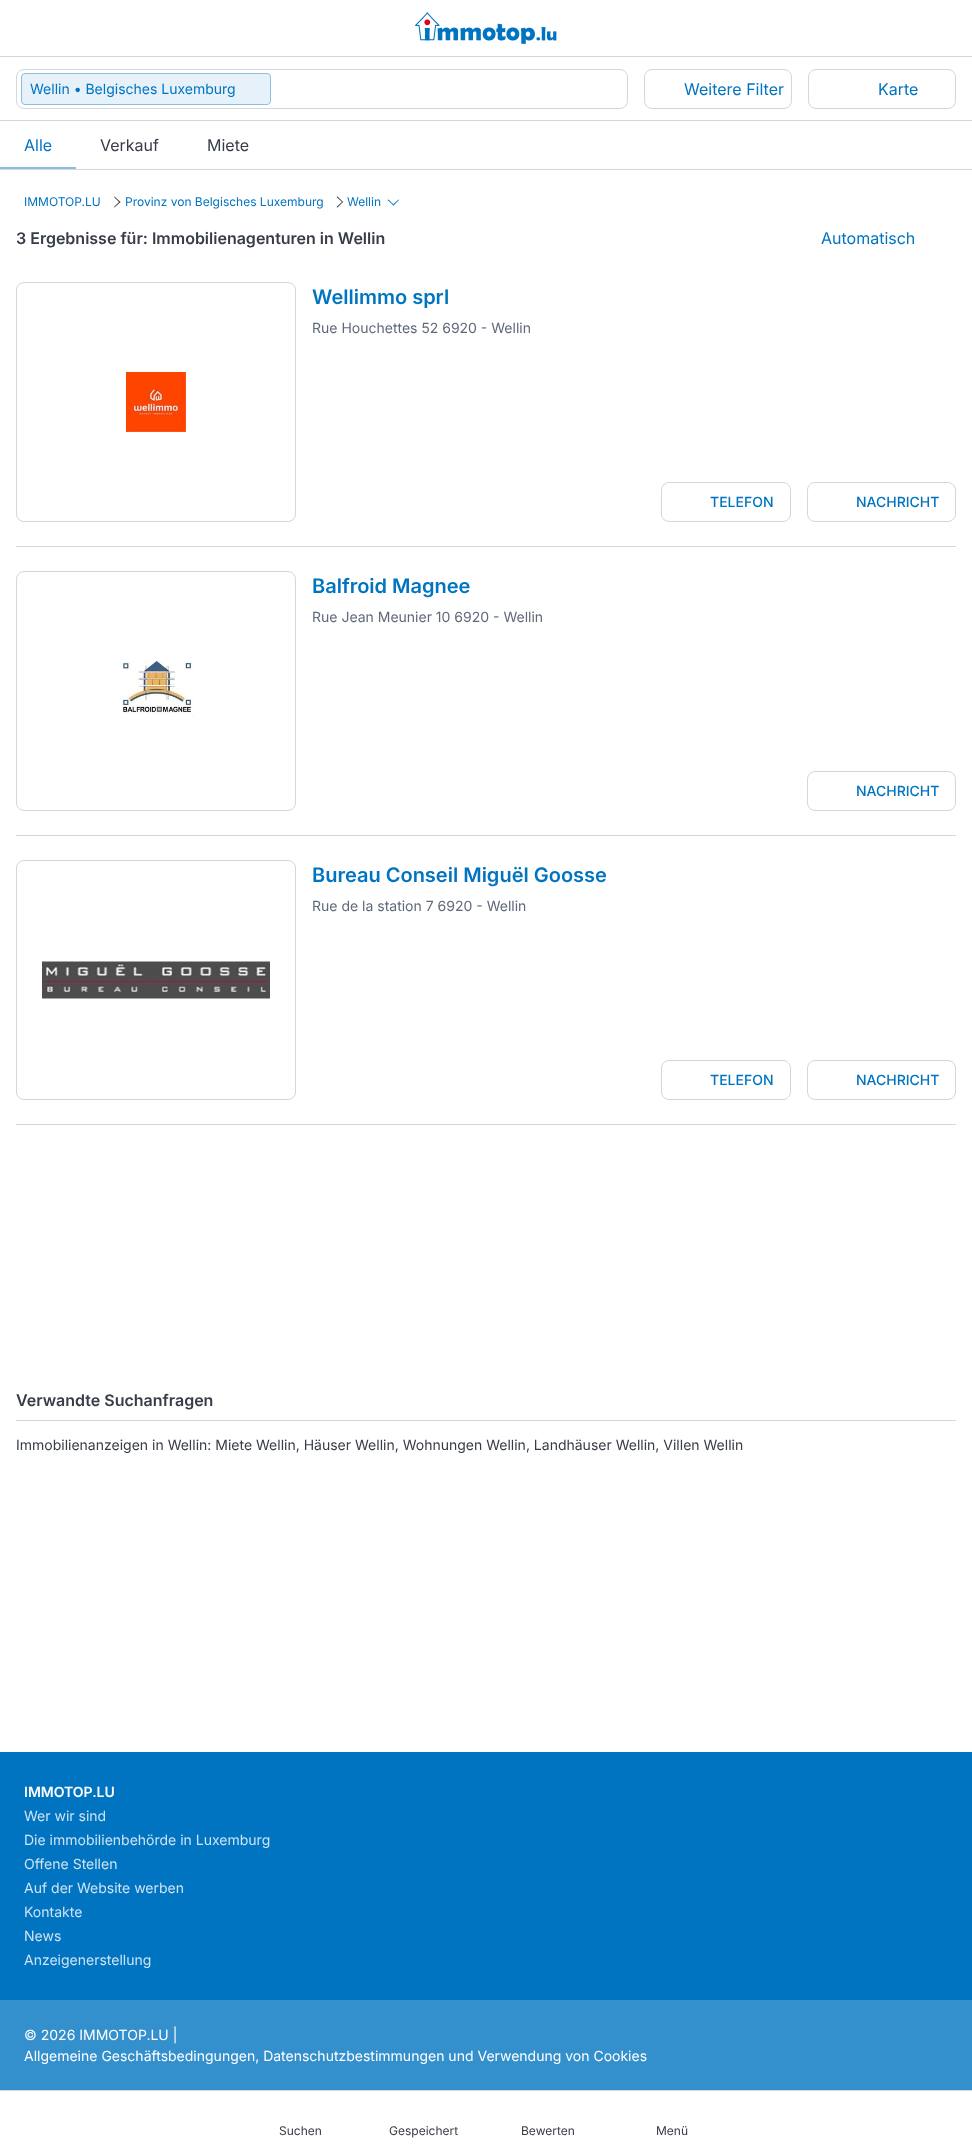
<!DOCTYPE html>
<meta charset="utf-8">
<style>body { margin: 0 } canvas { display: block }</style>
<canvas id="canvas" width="972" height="2146"></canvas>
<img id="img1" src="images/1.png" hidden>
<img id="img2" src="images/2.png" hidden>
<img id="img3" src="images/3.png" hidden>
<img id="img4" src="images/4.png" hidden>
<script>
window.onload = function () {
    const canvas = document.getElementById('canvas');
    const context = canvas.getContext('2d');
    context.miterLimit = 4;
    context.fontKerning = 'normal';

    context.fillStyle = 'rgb(255, 255, 255)';
    context.fillRect(0, 0, 972, 2146);
    context.fillStyle = 'rgb(213, 215, 221)';
    context.fillRect(0, 56, 972, 1);
    context.drawImage(document.getElementById('img1'), 415, 12, 142, 32);
    context.fillRect(0, 120, 972, 1);
    context.beginPath();
    context.roundRect(16.5, 69.5, 611, 39, 7.5);
    context.strokeStyle = 'rgb(213, 215, 221)';
    context.stroke();
    context.fillStyle = 'rgb(230, 241, 249)';
    context.beginPath();
    context.roundRect(21.5, 73.5, 249, 31, 3.5);
    context.fill();
    context.strokeStyle = 'rgb(138, 191, 226)';
    context.stroke();
    context.beginPath();
    context.roundRect(644.5, 69.5, 147, 39, 7.5);
    context.strokeStyle = 'rgb(213, 215, 221)';
    context.stroke();
    context.beginPath();
    context.roundRect(808.5, 69.5, 147, 39, 7.5);
    context.stroke();
    context.fillStyle = 'rgb(213, 215, 221)';
    context.fillRect(0, 169, 972, 1);
    context.fillStyle = 'rgb(138, 191, 226)';
    context.fillRect(0, 167, 76, 2);
    context.fillStyle = 'rgb(55, 60, 71)';
    context.beginPath();
    context.moveTo(120.5, 202);
    context.lineTo(114.5, 207.5);
    context.lineTo(114, 207);
    context.lineTo(119.5, 201.5);
    context.closePath();
    context.fill();
    context.beginPath();
    context.moveTo(120.5, 202);
    context.lineTo(119.5, 202.5);
    context.lineTo(114, 197);
    context.lineTo(114.5, 196.5);
    context.closePath();
    context.fill();
    context.beginPath();
    context.moveTo(343, 202);
    context.lineTo(337.5, 207.5);
    context.lineTo(336.5, 207);
    context.lineTo(342.5, 201.5);
    context.closePath();
    context.fill();
    context.beginPath();
    context.moveTo(343, 202);
    context.lineTo(342.5, 202.5);
    context.lineTo(336.5, 197);
    context.lineTo(337.5, 196.5);
    context.closePath();
    context.fill();
    context.fillStyle = 'rgb(0, 116, 193)';
    context.beginPath();
    context.moveTo(393.5, 205.5);
    context.lineTo(387.5, 200);
    context.lineTo(388.5, 199.5);
    context.lineTo(394, 205);
    context.closePath();
    context.fill();
    context.beginPath();
    context.moveTo(393.5, 205.5);
    context.lineTo(392.5, 205);
    context.lineTo(398.5, 199.5);
    context.lineTo(399, 200);
    context.closePath();
    context.fill();
    context.fillStyle = 'rgb(213, 215, 221)';
    context.fillRect(16, 1124, 940, 1);
    context.fillRect(16, 546, 940, 1);
    context.beginPath();
    context.roundRect(16.5, 282.5, 279, 239, 7.5);
    context.stroke();
    context.drawImage(document.getElementById('img2'), 126, 372, 60, 60);
    context.beginPath();
    context.roundRect(661.5, 482.5, 129, 39, 7.5);
    context.stroke();
    context.beginPath();
    context.roundRect(807.5, 482.5, 148, 39, 7.5);
    context.stroke();
    context.fillRect(16, 835, 940, 1);
    context.beginPath();
    context.roundRect(16.5, 571.5, 279, 239, 7.5);
    context.stroke();
    context.drawImage(document.getElementById('img3'), 118, 661, 77, 60);
    context.beginPath();
    context.roundRect(807.5, 771.5, 148, 39, 7.5);
    context.stroke();
    context.beginPath();
    context.roundRect(16.5, 860.5, 279, 239, 7.5);
    context.stroke();
    context.drawImage(document.getElementById('img4'), 42, 961, 228, 38);
    context.beginPath();
    context.roundRect(661.5, 1060.5, 129, 39, 7.5);
    context.stroke();
    context.beginPath();
    context.roundRect(807.5, 1060.5, 148, 39, 7.5);
    context.stroke();
    context.fillRect(16, 1420, 940, 1);
    context.fillStyle = 'rgb(0, 116, 193)';
    context.fillRect(0, 1752, 972, 248);
    context.fillStyle = 'rgb(51, 144, 205)';
    context.fillRect(0, 2000, 972, 90);
    context.fillStyle = 'rgb(213, 215, 221)';
    context.fillRect(0, 2090, 972, 1);
    context.font = '14px Inter';
    context.fillStyle = 'rgb(0, 116, 193)';
    context.fillText('Wellin • Belgisches Luxemburg', 30, 94);
    context.font = '16px Inter';
    context.fillText('Weitere Filter', 684, 95);
    context.fillText('Karte', 878, 95);
    context.fillText('Alle', 24, 151);
    context.fillStyle = 'rgb(55, 60, 71)';
    context.fillText('Verkauf', 100, 151);
    context.fillText('Miete', 207, 151);
    context.font = '12px Inter';
    context.fillStyle = 'rgb(0, 116, 193)';
    context.fillText('IMMOTOP.LU', 24, 206);
    context.fillText('Provinz von Belgisches Luxemburg', 125, 206);
    context.fillText('Wellin', 347, 206);
    context.font = '600 16px Inter';
    context.fillStyle = 'rgb(55, 60, 71)';
    context.fillText('3 Ergebnisse für: Immobilienagenturen in Wellin', 16, 244);
    context.font = '16px Inter';
    context.fillStyle = 'rgb(0, 116, 193)';
    context.fillText('Automatisch', 821, 244);
    context.font = '600 20px Inter';
    context.fillText('Wellimmo sprl', 312, 304);
    context.font = '14px Inter';
    context.fillStyle = 'rgb(96, 104, 122)';
    context.fillText('Rue Houchettes 52 6920 - Wellin', 312, 333);
    context.font = '500 14px Inter';
    context.fillStyle = 'rgb(0, 116, 193)';
    context.fillText('TELEFON', 710, 507);
    context.fillText('NACHRICHT', 856, 507);
    context.font = '600 20px Inter';
    context.fillText('Balfroid Magnee', 312, 593);
    context.font = '14px Inter';
    context.fillStyle = 'rgb(96, 104, 122)';
    context.fillText('Rue Jean Meunier 10 6920 - Wellin', 312, 622);
    context.font = '500 14px Inter';
    context.fillStyle = 'rgb(0, 116, 193)';
    context.fillText('NACHRICHT', 856, 796);
    context.font = '600 20px Inter';
    context.fillText('Bureau Conseil Miguël Goosse', 312, 882);
    context.font = '14px Inter';
    context.fillStyle = 'rgb(96, 104, 122)';
    context.fillText('Rue de la station 7 6920 - Wellin', 312, 911);
    context.font = '500 14px Inter';
    context.fillStyle = 'rgb(0, 116, 193)';
    context.fillText('TELEFON', 710, 1085);
    context.fillText('NACHRICHT', 856, 1085);
    context.font = '600 16px Inter';
    context.fillStyle = 'rgb(55, 60, 71)';
    context.fillText('Verwandte Suchanfragen', 16, 1406);
    context.font = '14px Inter';
    context.fillText('Immobilienanzeigen in Wellin: Miete Wellin, Häuser Wellin, Wohnungen Wellin, Landhäuser Wellin, Villen Wellin', 16, 1450);
    context.font = '600 14px Inter';
    context.fillStyle = 'rgb(255, 255, 255)';
    context.fillText('IMMOTOP.LU', 24, 1797);
    context.font = '14px Inter';
    context.fillStyle = 'rgb(204, 227, 243)';
    context.fillText('Wer wir sind', 24, 1821);
    context.fillText('Die immobilienbehörde in Luxemburg', 24, 1845);
    context.fillText('Offene Stellen', 24, 1869);
    context.fillText('Auf der Website werben', 24, 1893);
    context.fillText('Kontakte', 24, 1917);
    context.fillText('News', 24, 1941);
    context.fillText('Anzeigenerstellung', 24, 1965);
    context.fillStyle = 'rgb(255, 255, 255)';
    context.fillText('© 2026 IMMOTOP.LU |', 24, 2040);
    context.fillText('Allgemeine Geschäftsbedingungen, Datenschutzbestimmungen und Verwendung von Cookies', 24, 2061);
    context.font = '12px Inter';
    context.fillStyle = 'rgb(55, 60, 71)';
    context.fillText('Suchen', 279, 2135);
    context.fillText('Gespeichert', 389, 2135);
    context.fillText('Bewerten', 521, 2135);
    context.fillText('Menü', 656, 2135);
};
</script>
